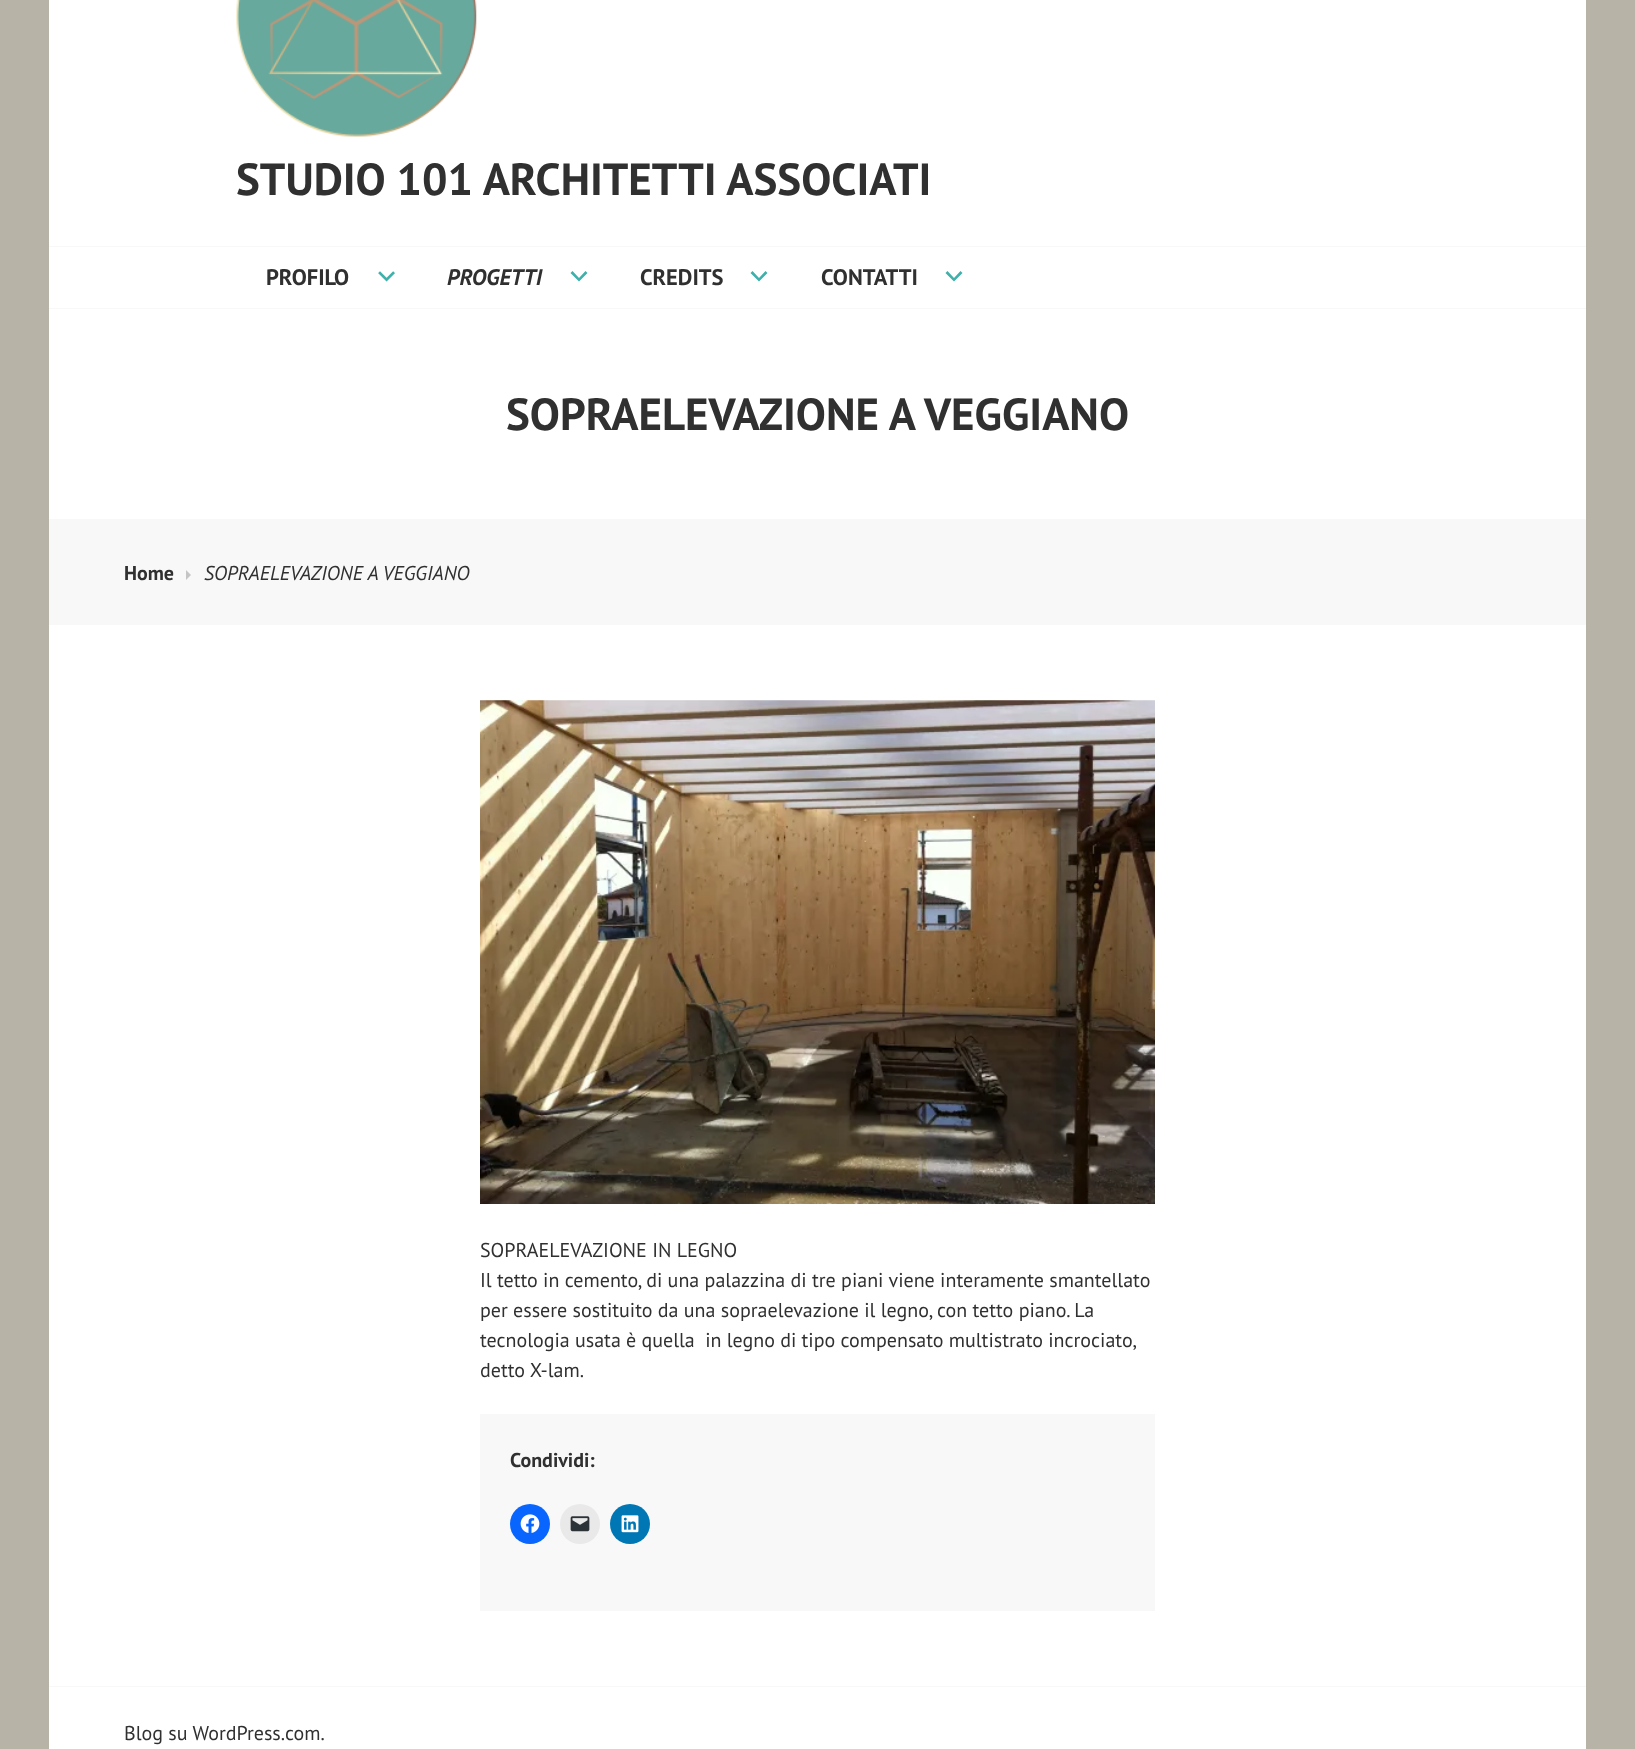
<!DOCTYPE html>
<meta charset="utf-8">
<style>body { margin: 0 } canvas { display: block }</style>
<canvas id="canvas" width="1635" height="1749"></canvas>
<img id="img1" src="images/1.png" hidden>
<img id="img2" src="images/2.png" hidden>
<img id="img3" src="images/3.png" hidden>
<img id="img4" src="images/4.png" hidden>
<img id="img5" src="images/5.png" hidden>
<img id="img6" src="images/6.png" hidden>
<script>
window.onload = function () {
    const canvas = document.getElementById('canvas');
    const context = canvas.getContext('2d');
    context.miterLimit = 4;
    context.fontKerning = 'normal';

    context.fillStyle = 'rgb(184, 179, 167)';
    context.fillRect(0, 0, 1635, 1749);
    context.fillStyle = 'rgb(255, 255, 255)';
    context.fillRect(49, 0, 1537, 308);
    context.fillStyle = 'rgb(248, 248, 248)';
    context.fillRect(49, 308, 1537, 1);
    context.drawImage(document.getElementById('img1'), 236, 0, 241, 137);
    context.fillRect(49, 246, 1537, 1);
    context.drawImage(document.getElementById('img2'), 378, 271, 17, 11);
    context.fillStyle = 'rgb(63, 176, 170)';
    context.beginPath();
    context.moveTo(585.5, 271);
    context.lineTo(587.5, 273);
    context.lineTo(579, 281.5);
    context.lineTo(570.5, 273);
    context.lineTo(572.5, 271);
    context.lineTo(579, 278);
    context.closePath();
    context.fill();
    context.beginPath();
    context.moveTo(765.5, 271);
    context.lineTo(767.5, 273);
    context.lineTo(759, 281.5);
    context.lineTo(750.5, 273);
    context.lineTo(752.5, 271);
    context.lineTo(759, 278);
    context.closePath();
    context.fill();
    context.beginPath();
    context.moveTo(960.5, 271);
    context.lineTo(962.5, 273);
    context.lineTo(954, 281.5);
    context.lineTo(945.5, 273);
    context.lineTo(947.5, 271);
    context.lineTo(954, 278);
    context.closePath();
    context.fill();
    context.fillStyle = 'rgb(255, 255, 255)';
    context.fillRect(49, 309, 1537, 1377);
    context.fillStyle = 'rgb(248, 248, 248)';
    context.fillRect(49, 519, 1537, 106);
    context.fillStyle = 'rgb(197, 197, 197)';
    context.beginPath();
    context.moveTo(186, 580);
    context.lineTo(186, 570);
    context.lineTo(191, 575);
    context.closePath();
    context.fill();
    context.drawImage(document.getElementById('img3'), 480, 700, 675, 504);
    context.fillStyle = 'rgb(248, 248, 248)';
    context.fillRect(480, 1414, 675, 197);
    context.fillStyle = 'rgb(8, 102, 255)';
    context.beginPath();
    context.arc(530, 1524, 20, 0, 2 * Math.PI);
    context.fill();
    context.drawImage(document.getElementById('img4'), 520, 1514, 20, 19);
    context.fillStyle = 'rgb(233, 233, 233)';
    context.beginPath();
    context.arc(580, 1524, 20, 0, 2 * Math.PI);
    context.fill();
    context.drawImage(document.getElementById('img5'), 570, 1516, 20, 16);
    context.fillStyle = 'rgb(0, 119, 181)';
    context.beginPath();
    context.arc(630, 1524, 20, 0, 2 * Math.PI);
    context.fill();
    context.drawImage(document.getElementById('img6'), 621, 1515, 18, 18);
    context.fillStyle = 'rgb(255, 255, 255)';
    context.fillRect(49, 1687, 1537, 62);
    context.fillStyle = 'rgb(248, 248, 248)';
    context.fillRect(49, 1686, 1537, 1);
    context.font = 'bold 45px PT Sans';
    context.fillStyle = 'rgb(48, 48, 48)';
    context.fillText('STUDIO 101 ARCHITETTI ASSOCIATI', 236, 195);
    context.font = 'bold 22.5px PT Sans';
    context.fillText('PROFILO', 266, 285);
    context.font = 'italic bold 22.5px PT Sans';
    context.fillText('PROGETTI', 447, 285);
    context.font = 'bold 22.5px PT Sans';
    context.fillText('CREDITS', 640, 285);
    context.fillText('CONTATTI', 821, 285);
    context.font = 'bold 45px PT Sans';
    context.fillText('SOPRAELEVAZIONE A VEGGIANO', 506, 430);
    context.font = 'bold 20px PT Sans';
    context.fillText('Home', 124, 580);
    context.font = 'italic 20px PT Sans';
    context.fillText('SOPRAELEVAZIONE A VEGGIANO', 204, 580);
    context.font = '20px PT Sans';
    context.fillText('SOPRAELEVAZIONE IN LEGNO', 480, 1257);
    context.fillText('Il tetto in cemento, di una palazzina di tre piani viene interamente smantellato', 480, 1287);
    context.fillText('per essere sostituito da una sopraelevazione il legno, con tetto piano. La', 480, 1317);
    context.wordSpacing = '-0.1px';
    context.fillText('tecnologia usata è quella  in legno di tipo compensato multistrato incrociato,', 480, 1347);
    context.wordSpacing = '0px';
    context.fillText('detto X-lam.', 480, 1377);
    context.font = 'bold 20px PT Sans';
    context.fillText('Condividi:', 510, 1467);
    context.font = '20px PT Sans';
    context.fillText('Blog su WordPress.com.', 124, 1740);
};
</script>
